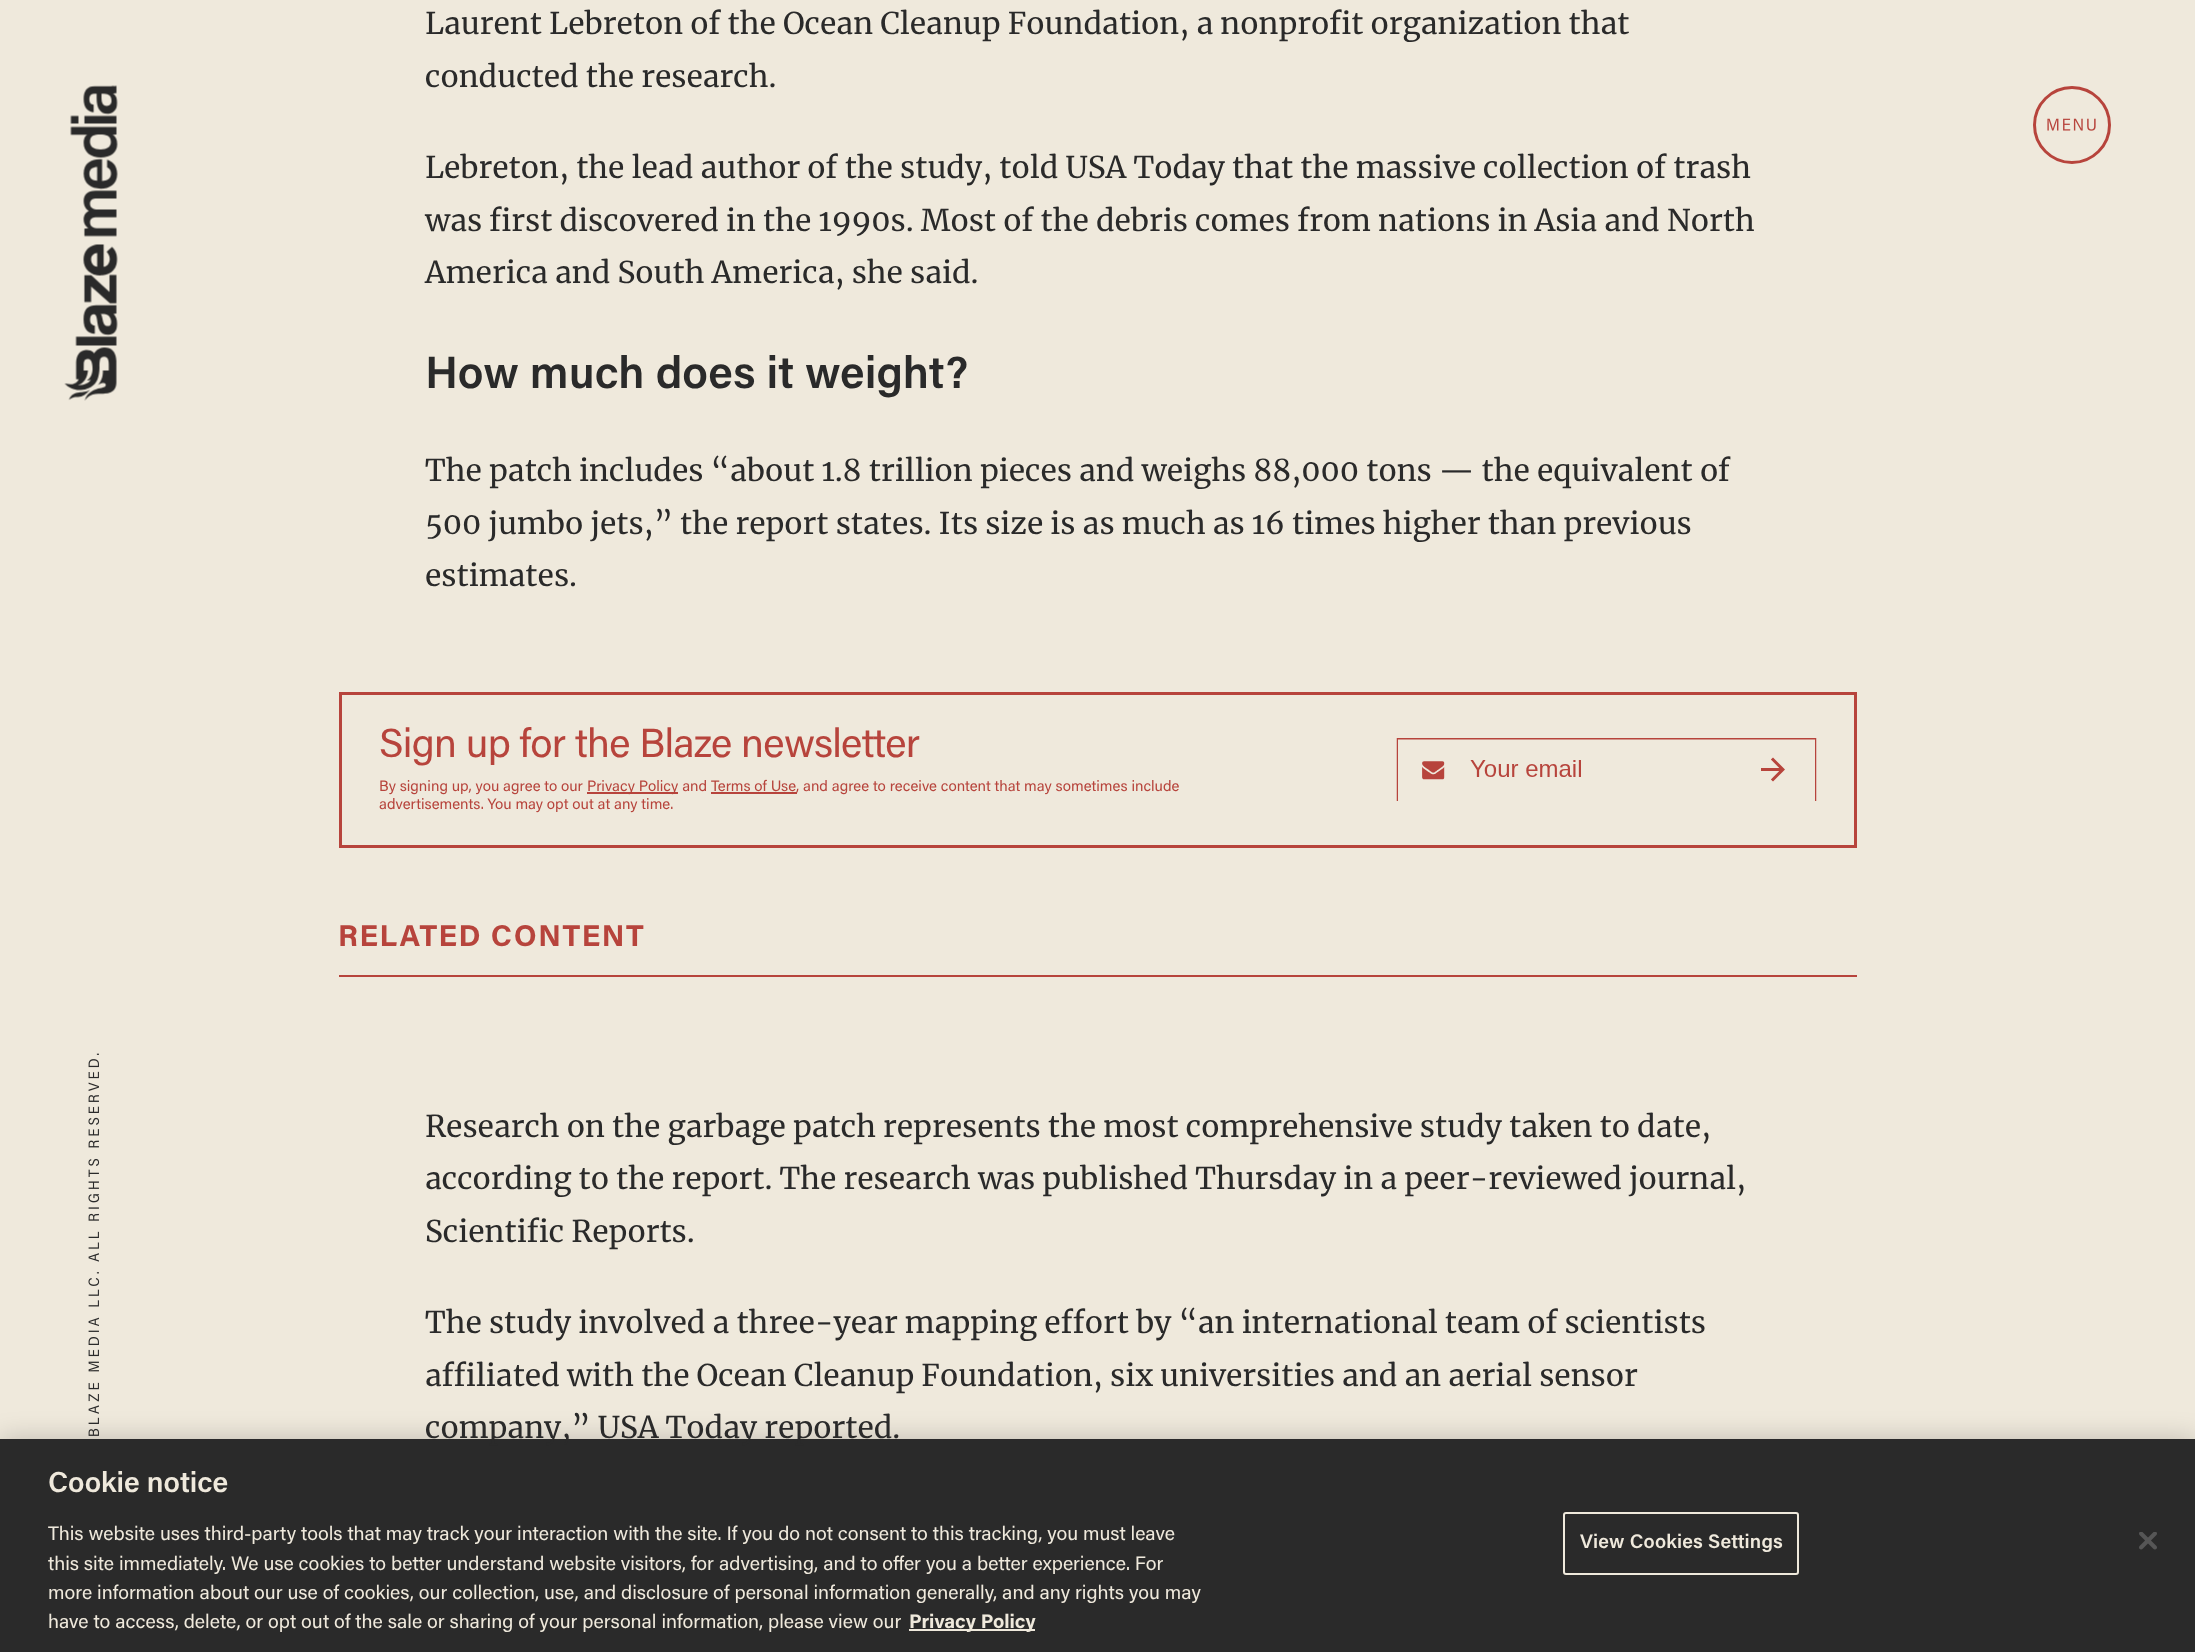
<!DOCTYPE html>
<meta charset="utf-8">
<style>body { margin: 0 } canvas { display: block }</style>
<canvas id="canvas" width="2195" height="1652"></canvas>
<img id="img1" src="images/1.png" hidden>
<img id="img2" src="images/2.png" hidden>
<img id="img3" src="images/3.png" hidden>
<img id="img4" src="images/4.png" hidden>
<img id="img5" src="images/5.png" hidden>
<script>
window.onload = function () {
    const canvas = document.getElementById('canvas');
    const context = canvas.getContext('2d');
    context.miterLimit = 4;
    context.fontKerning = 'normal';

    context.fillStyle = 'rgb(239, 233, 220)';
    context.fillRect(0, 0, 2195, 1652);
    context.drawImage(document.getElementById('img1'), 64, 85, 54, 316);
    context.strokeStyle = 'rgb(183, 68, 60)';
    context.lineWidth = 3;
    context.strokeRect(340.5, 693.5, 1515, 153);
    context.drawImage(document.getElementById('img2'), 1396, 738, 421, 63);
    context.fillStyle = 'rgb(183, 68, 60)';
    context.fillRect(587, 792, 91, 2);
    context.fillRect(711, 792, 86, 2);
    context.fillRect(339, 975, 1518, 2);
    context.beginPath();
    context.arc(2072, 125, 37.5, 0, 2 * Math.PI);
    context.stroke();
    context.drawImage(document.getElementById('img3'), 2047, 118, 49, 13);
    context.drawImage(document.getElementById('img4'), 88, 1053, 12, 383);
    context.fillStyle = 'rgba(0, 0, 0, 0.2)';
    context.filter = 'blur(13.5px)';
    context.beginPath();
    context.rect(0, 1439, 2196, 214);
    context.fill();
    context.filter = 'none';
    context.fillStyle = 'rgb(42, 42, 42)';
    context.fillRect(0, 1439, 2195, 213);
    context.fillStyle = 'rgb(239, 233, 220)';
    context.fillRect(909, 1629, 126, 2);
    context.beginPath();
    context.roundRect(1564, 1513, 234, 61, 2);
    context.strokeStyle = 'rgb(239, 233, 220)';
    context.lineWidth = 2;
    context.stroke();
    context.drawImage(document.getElementById('img5'), 2139, 1532, 18, 18);
    context.font = '30px Merriweather';
    context.fillStyle = 'rgb(42, 42, 42)';
    context.fillText('Laurent Lebreton of the Ocean Cleanup Foundation, a nonprofit organization that', 425, 34);
    context.fillText('conducted the research.', 425, 87);
    context.fillText('Lebreton, the lead author of the study, told USA Today that the massive collection of trash', 425, 178);
    context.fillText('was first discovered in the 1990s. Most of the debris comes from nations in Asia and North', 425, 231);
    context.fillText('America and South America, she said.', 425, 283);
    context.font = '600 45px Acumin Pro';
    context.fillText('How much does it weight?', 425, 388);
    context.font = '30px Merriweather';
    context.fillText('The patch includes “about 1.8 trillion pieces and weighs 88,000 tons — the equivalent of', 425, 481);
    context.fillText('500 jumbo jets,” the report states. Its size is as much as 16 times higher than previous', 425, 534);
    context.fillText('estimates.', 425, 586);
    context.letterSpacing = '-0.7px';
    context.font = '40.5px Acumin Pro';
    context.fillStyle = 'rgb(183, 68, 60)';
    context.fillText('Sign up for the Blaze newsletter', 379, 757);
    context.letterSpacing = '0px';
    context.font = '15px Acumin Pro';
    context.fillText('By signing up, you agree to our', 379, 791);
    context.fillText('Privacy Policy and Terms of Use', 587, 791);
    context.fillText(', and agree to receive content that may sometimes include', 796, 791);
    context.fillText('advertisements. You may opt out at any time.', 379, 809);
    context.letterSpacing = '1.5px';
    context.font = 'bold 30px Acumin Pro';
    context.fillText('RELATED CONTENT', 338, 946);
    context.letterSpacing = '0px';
    context.font = '30px Merriweather';
    context.fillStyle = 'rgb(42, 42, 42)';
    context.fillText('Research on the garbage patch represents the most comprehensive study taken to date,', 425, 1137);
    context.fillText('according to the report. The research was published Thursday in a peer-reviewed journal,', 425, 1189);
    context.fillText('Scientific Reports.', 425, 1242);
    context.fillText('The study involved a three-year mapping effort by “an international team of scientists', 425, 1333);
    context.fillText('affiliated with the Ocean Cleanup Foundation, six universities and an aerial sensor', 425, 1386);
    context.fillText('company,” USA Today reported.', 425, 1438);
    context.font = '600 28.75px Acumin Pro';
    context.fillStyle = 'rgb(239, 233, 220)';
    context.fillText('Cookie notice', 48, 1492);
    context.font = '19.5px Acumin Pro';
    context.fillText('This website uses third-party tools that may track your interaction with the site. If you do not consent to this tracking, you must leave', 48, 1540);
    context.fillText('this site immediately. We use cookies to better understand website visitors, for advertising, and to offer you a better experience. For', 48, 1570);
    context.fillText('more information about our use of cookies, our collection, use, and disclosure of personal information generally, and any rights you may', 48, 1599);
    context.fillText('have to access, delete, or opt out of the sale or sharing of your personal information, please view our', 48, 1628);
    context.font = 'bold 19.5px Acumin Pro';
    context.fillText('Privacy Policy', 909, 1628);
    context.letterSpacing = '0.2px';
    context.font = '600 19.5px Acumin Pro';
    context.fillText('View Cookies Settings', 1580, 1548);
};
</script>
